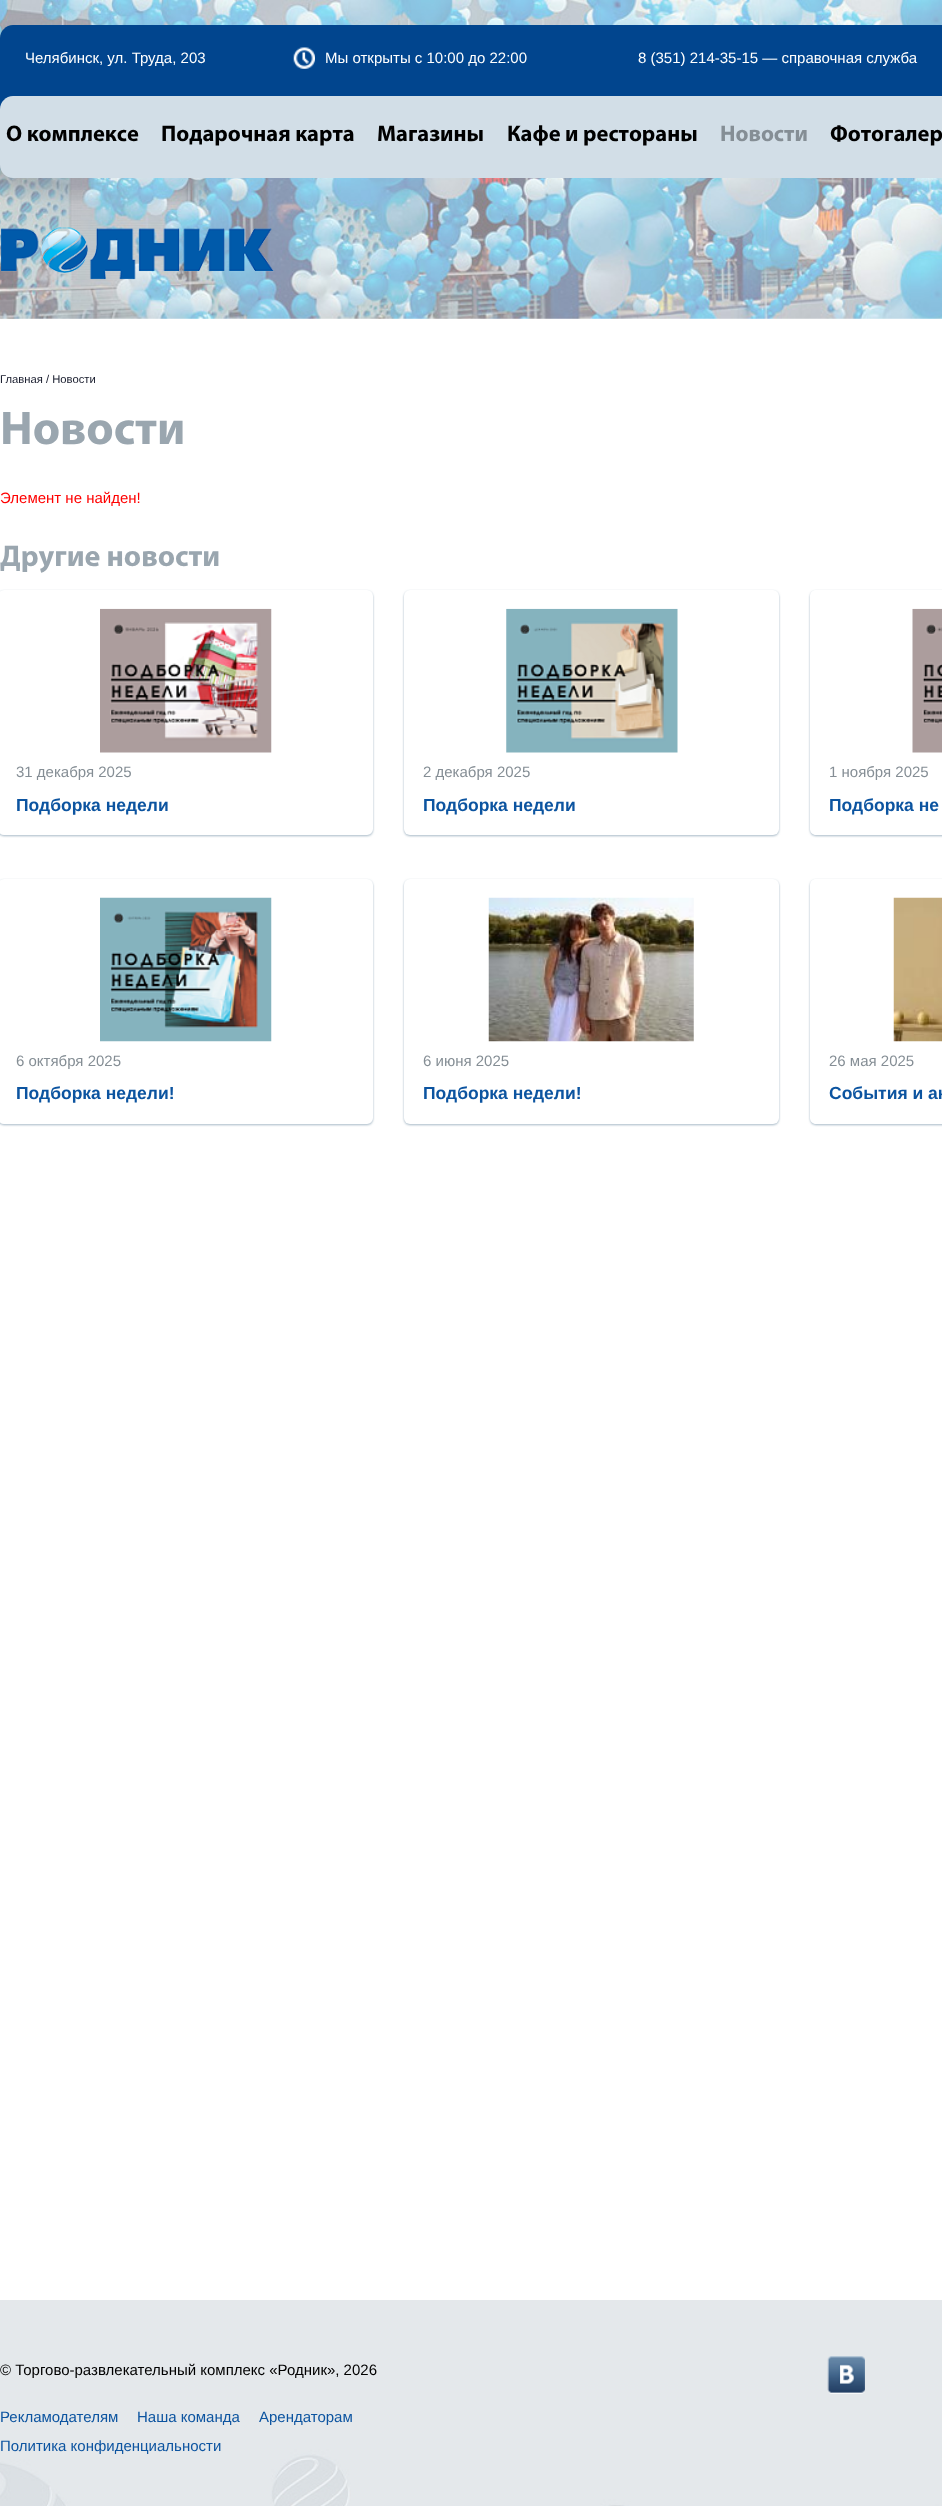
<!DOCTYPE html>
<meta charset="utf-8">
<style>body { margin: 0 } canvas { display: block }</style>
<canvas id="canvas" width="942" height="2506"></canvas>
<img id="img1" src="images/1.png" hidden>
<img id="img2" src="images/2.png" hidden>
<img id="img3" src="images/3.png" hidden>
<img id="img4" src="images/4.png" hidden>
<img id="img5" src="images/5.png" hidden>
<img id="img6" src="images/6.png" hidden>
<img id="img7" src="images/7.png" hidden>
<img id="img8" src="images/8.png" hidden>
<img id="img9" src="images/9.png" hidden>
<img id="img10" src="images/10.png" hidden>
<img id="img11" src="images/11.png" hidden>
<script>
window.onload = function () {
    const canvas = document.getElementById('canvas');
    const context = canvas.getContext('2d');
    context.miterLimit = 4;
    context.fontKerning = 'normal';

    context.fillStyle = 'rgb(255, 255, 255)';
    context.fillRect(0, 0, 942, 2506);
    context.drawImage(document.getElementById('img1'), 0, 0, 942, 319);
    context.fillStyle = 'rgb(1, 69, 142)';
    context.beginPath();
    context.moveTo(13, 25);
    context.lineTo(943, 25);
    context.lineTo(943, 109);
    context.lineTo(0, 109);
    context.lineTo(0, 38);
    context.bezierCurveTo(0, 31, 6, 25, 13, 25);
    context.closePath();
    context.fill();
    context.drawImage(document.getElementById('img2'), 293, 47, 22, 22);
    context.fillStyle = 'rgb(210, 222, 231)';
    context.beginPath();
    context.moveTo(13, 96);
    context.lineTo(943, 96);
    context.lineTo(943, 178);
    context.lineTo(13, 178);
    context.bezierCurveTo(6, 178, 0, 172, 0, 165);
    context.lineTo(0, 109);
    context.bezierCurveTo(0, 102, 6, 96, 13, 96);
    context.closePath();
    context.fill();
    context.drawImage(document.getElementById('img3'), 1, 227, 273, 53);
    context.fillStyle = 'rgb(166, 184, 198)';
    context.filter = 'blur(1px)';
    context.beginPath();
    context.roundRect(-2, 591, 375, 245, 6);
    context.fill();
    context.filter = 'none';
    context.fillStyle = 'rgb(255, 255, 255)';
    context.beginPath();
    context.roundRect(-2, 590, 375, 245, 6);
    context.fill();
    context.drawImage(document.getElementById('img4'), 100, 608, 172, 145);
    context.fillStyle = 'rgb(166, 184, 198)';
    context.filter = 'blur(1px)';
    context.beginPath();
    context.roundRect(404, 591, 375, 245, 6);
    context.fill();
    context.filter = 'none';
    context.fillStyle = 'rgb(255, 255, 255)';
    context.beginPath();
    context.roundRect(404, 590, 375, 245, 6);
    context.fill();
    context.drawImage(document.getElementById('img5'), 506, 608, 172, 145);
    context.fillStyle = 'rgb(166, 184, 198)';
    context.filter = 'blur(1px)';
    context.beginPath();
    context.roundRect(810, 591, 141, 245, 6);
    context.fill();
    context.filter = 'none';
    context.fillStyle = 'rgb(255, 255, 255)';
    context.beginPath();
    context.moveTo(816, 590);
    context.lineTo(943, 590);
    context.lineTo(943, 835);
    context.lineTo(816, 835);
    context.bezierCurveTo(812.5, 835, 810, 832.5, 810, 829);
    context.lineTo(810, 596);
    context.bezierCurveTo(810, 592.5, 812.5, 590, 816, 590);
    context.closePath();
    context.fill();
    context.drawImage(document.getElementById('img6'), 912, 608, 30, 145);
    context.fillStyle = 'rgb(166, 184, 198)';
    context.filter = 'blur(1px)';
    context.beginPath();
    context.roundRect(-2, 880, 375, 245, 6);
    context.fill();
    context.filter = 'none';
    context.fillStyle = 'rgb(255, 255, 255)';
    context.beginPath();
    context.roundRect(-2, 879, 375, 245, 6);
    context.fill();
    context.drawImage(document.getElementById('img7'), 100, 897, 172, 145);
    context.fillStyle = 'rgb(166, 184, 198)';
    context.filter = 'blur(1px)';
    context.beginPath();
    context.roundRect(404, 880, 375, 245, 6);
    context.fill();
    context.filter = 'none';
    context.fillStyle = 'rgb(255, 255, 255)';
    context.beginPath();
    context.roundRect(404, 879, 375, 245, 6);
    context.fill();
    context.drawImage(document.getElementById('img8'), 488, 897, 206, 145);
    context.fillStyle = 'rgb(166, 184, 198)';
    context.filter = 'blur(1px)';
    context.beginPath();
    context.roundRect(810, 880, 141, 245, 6);
    context.fill();
    context.filter = 'none';
    context.fillStyle = 'rgb(255, 255, 255)';
    context.beginPath();
    context.moveTo(816, 879);
    context.lineTo(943, 879);
    context.lineTo(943, 1124);
    context.lineTo(816, 1124);
    context.bezierCurveTo(812.5, 1124, 810, 1121.5, 810, 1118);
    context.lineTo(810, 885);
    context.bezierCurveTo(810, 881.5, 812.5, 879, 816, 879);
    context.closePath();
    context.fill();
    context.drawImage(document.getElementById('img9'), 893, 897, 49, 145);
    context.drawImage(document.getElementById('img10'), 0, 2300, 942, 206);
    context.drawImage(document.getElementById('img11'), 827, 2356, 38, 38);
    context.font = '15px Liberation Sans';
    context.fillText('Челябинск, ул. Труда, 203', 25, 63);
    context.fillText('Мы открыты с 10:00 до 22:00', 325, 63);
    context.fillText('8 (351) 214-35-15 — справочная служба', 638, 63);
    context.font = 'bold 22.5px Myriad';
    context.fillStyle = 'rgb(0, 0, 0)';
    context.fillText('О комплексе', 6, 141);
    context.fillText('Подарочная карта', 161, 141);
    context.fillText('Магазины', 377, 141);
    context.fillText('Кафе и рестораны', 507, 141);
    context.fillStyle = 'rgb(133, 142, 149)';
    context.fillText('Новости', 720, 141);
    context.fillStyle = 'rgb(0, 0, 0)';
    context.fillText('Фотогалер', 830, 141);
    context.font = '11.25px Liberation Sans';
    context.fillStyle = 'rgb(22, 26, 43)';
    context.fillText('Главная / Новости', 0, 383);
    context.font = 'bold 47.5px Myriad';
    context.fillStyle = 'rgb(154, 166, 175)';
    context.fillText('Новости', 0, 444);
    context.font = '15px Liberation Sans';
    context.fillStyle = 'rgb(255, 0, 0)';
    context.fillText('Элемент не найден!', 0, 503);
    context.font = 'bold 30px Myriad';
    context.fillStyle = 'rgb(154, 166, 175)';
    context.fillText('Другие новости', 0, 566);
    context.font = '15px Liberation Sans';
    context.fillStyle = 'rgb(133, 142, 149)';
    context.fillText('31 декабря 2025', 16, 777);
    context.font = 'bold 17.5px Liberation Sans';
    context.fillStyle = 'rgb(12, 84, 160)';
    context.fillText('Подборка недели', 16, 811);
    context.font = '15px Liberation Sans';
    context.fillStyle = 'rgb(133, 142, 149)';
    context.fillText('2 декабря 2025', 423, 777);
    context.font = 'bold 17.5px Liberation Sans';
    context.fillStyle = 'rgb(12, 84, 160)';
    context.fillText('Подборка недели', 423, 811);
    context.font = '15px Liberation Sans';
    context.fillStyle = 'rgb(133, 142, 149)';
    context.fillText('1 ноября 2025', 829, 777);
    context.font = 'bold 17.5px Liberation Sans';
    context.fillStyle = 'rgb(12, 84, 160)';
    context.fillText('Подборка не', 829, 811);
    context.font = '15px Liberation Sans';
    context.fillStyle = 'rgb(133, 142, 149)';
    context.fillText('6 октября 2025', 16, 1066);
    context.font = 'bold 17.5px Liberation Sans';
    context.fillStyle = 'rgb(12, 84, 160)';
    context.fillText('Подборка недели!', 16, 1099);
    context.font = '15px Liberation Sans';
    context.fillStyle = 'rgb(133, 142, 149)';
    context.fillText('6 июня 2025', 423, 1066);
    context.font = 'bold 17.5px Liberation Sans';
    context.fillStyle = 'rgb(12, 84, 160)';
    context.fillText('Подборка недели!', 423, 1099);
    context.font = '15px Liberation Sans';
    context.fillStyle = 'rgb(133, 142, 149)';
    context.fillText('26 мая 2025', 829, 1066);
    context.font = 'bold 17.5px Liberation Sans';
    context.fillStyle = 'rgb(12, 84, 160)';
    context.fillText('События и ак', 829, 1099);
    context.font = '15px Liberation Sans';
    context.fillStyle = 'rgb(0, 0, 0)';
    context.fillText('© Торгово-развлекательный комплекс «Родник», 2026', 0, 2375);
    context.fillStyle = 'rgb(12, 84, 160)';
    context.fillText('Рекламодателям', 0, 2422);
    context.fillText('Наша команда', 137, 2422);
    context.fillText('Арендаторам', 259, 2422);
    context.fillText('Политика конфиденциальности', 0, 2451);
};
</script>
